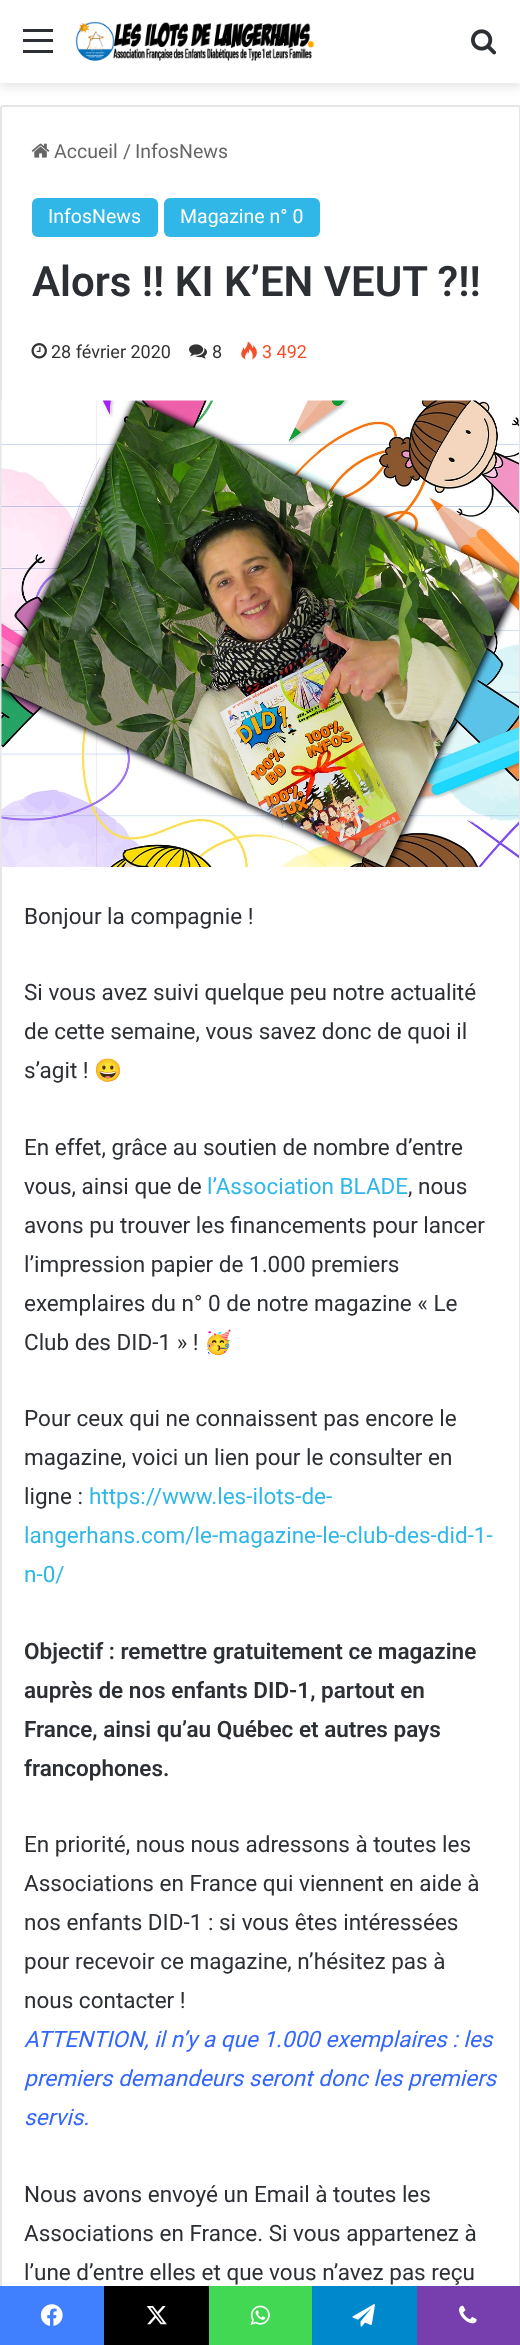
<!DOCTYPE html>
<meta charset="utf-8">
<style>body { margin: 0 } canvas { display: block }</style>
<canvas id="canvas" width="520" height="2345"></canvas>
<img id="img1" src="images/1.png" hidden>
<img id="img2" src="images/2.png" hidden>
<img id="img3" src="images/3.png" hidden>
<img id="img4" src="images/4.png" hidden>
<img id="img5" src="images/5.png" hidden>
<img id="img6" src="images/6.png" hidden>
<img id="img7" src="images/7.png" hidden>
<img id="img8" src="images/8.png" hidden>
<img id="img9" src="images/9.png" hidden>
<img id="img10" src="images/10.png" hidden>
<img id="img11" src="images/11.png" hidden>
<img id="img12" src="images/12.png" hidden>
<script>
window.onload = function () {
    const canvas = document.getElementById('canvas');
    const context = canvas.getContext('2d');
    context.miterLimit = 4;
    context.fontKerning = 'normal';

    context.fillStyle = 'rgb(255, 255, 255)';
    context.fillRect(0, 0, 520, 2345);
    context.fillStyle = 'rgba(0, 0, 0, 0.1)';
    context.filter = 'blur(5px)';
    context.beginPath();
    context.rect(0, 5, 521, 82);
    context.fill();
    context.filter = 'none';
    context.fillStyle = 'rgb(255, 255, 255)';
    context.fillRect(0, 0, 520, 83);
    context.fillStyle = 'rgb(44, 47, 52)';
    context.fillRect(23, 39, 30, 3);
    context.fillRect(23, 29, 30, 3);
    context.fillRect(23, 50, 30, 3);
    context.drawImage(document.getElementById('img1'), 75, 21, 240, 40);
    context.drawImage(document.getElementById('img2'), 471, 29, 26, 26);
    context.beginPath();
    context.roundRect(1, 106, 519, 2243, 2);
    context.strokeStyle = 'rgb(230, 230, 230)';
    context.lineWidth = 2;
    context.stroke();
    context.drawImage(document.getElementById('img3'), 31, 143, 19, 15);
    context.fillStyle = 'rgb(48, 183, 232)';
    context.beginPath();
    context.roundRect(32, 198, 126, 39, 6);
    context.fill();
    context.beginPath();
    context.roundRect(164, 198, 156, 39, 6);
    context.fill();
    context.drawImage(document.getElementById('img4'), 31, 343, 16, 16);
    context.drawImage(document.getElementById('img5'), 189, 344, 18, 15);
    context.drawImage(document.getElementById('img6'), 241, 341, 16, 19);
    context.drawImage(document.getElementById('img7'), 1, 400, 518, 467);
    context.fillStyle = 'rgb(64, 128, 255)';
    context.fillRect(0, 2286, 104, 59);
    context.drawImage(document.getElementById('img8'), 40, 2304, 23, 22);
    context.fillStyle = 'rgb(0, 0, 0)';
    context.fillRect(104, 2286, 105, 59);
    context.drawImage(document.getElementById('img9'), 146, 2306, 21, 19);
    context.fillStyle = 'rgb(67, 216, 84)';
    context.fillRect(209, 2286, 103, 59);
    context.drawImage(document.getElementById('img10'), 250, 2305, 20, 20);
    context.fillStyle = 'rgb(0, 136, 204)';
    context.fillRect(312, 2286, 105, 59);
    context.drawImage(document.getElementById('img11'), 352, 2304, 23, 23);
    context.fillStyle = 'rgb(119, 62, 173)';
    context.fillRect(417, 2286, 103, 59);
    context.drawImage(document.getElementById('img12'), 459, 2305, 18, 19);
    context.font = '19.5px Roboto';
    context.fillStyle = 'rgb(102, 102, 102)';
    context.fillText('Accueil', 54, 158);
    context.fillText('/', 123, 158);
    context.fillText('InfosNews', 135, 158);
    context.fillStyle = 'rgb(255, 255, 255)';
    context.fillText('InfosNews', 48, 223);
    context.fillText('Magazine n° 0', 180, 223);
    context.font = '600 42px Roboto';
    context.fillStyle = 'rgb(44, 47, 52)';
    context.fillText('Alors !! KI K’EN VEUT ?!!', 32, 296);
    context.font = '18px Roboto';
    context.fillStyle = 'rgb(51, 51, 51)';
    context.fillText('28 février 2020', 51, 358);
    context.fillText('8', 212, 358);
    context.fillStyle = 'rgb(243, 80, 42)';
    context.fillText('3 492', 262, 358);
    context.font = '22.5px Roboto';
    context.fillStyle = 'rgb(44, 47, 52)';
    context.fillText('Bonjour la compagnie !', 24, 924);
    context.fillText('Si vous avez suivi quelque peu notre actualité', 24, 1000);
    context.fillText('de cette semaine, vous savez donc de quoi il', 24, 1039);
    context.fillText('s’agit !', 24, 1078);
    context.font = '22.5px Noto Color Emoji';
    context.fillText('😀', 94, 1078);
    context.font = '22.5px Roboto';
    context.fillText('En effet, grâce au soutien de nombre d’entre', 24, 1155);
    context.fillText('vous, ainsi que de', 24, 1194);
    context.fillStyle = 'rgb(48, 183, 232)';
    context.fillText('l’Association BLADE', 207, 1194);
    context.fillStyle = 'rgb(44, 47, 52)';
    context.fillText(', nous', 408, 1194);
    context.fillText('avons pu trouver les financements pour lancer', 24, 1233);
    context.fillText('l’impression papier de 1.000 premiers', 24, 1272);
    context.fillText('exemplaires du n° 0 de notre magazine « Le', 24, 1311);
    context.fillText('Club des DID-1 » !', 24, 1350);
    context.font = '22.5px Noto Color Emoji';
    context.fillText('🥳', 204, 1350);
    context.font = '22.5px Roboto';
    context.fillText('Pour ceux qui ne connaissent pas encore le', 24, 1426);
    context.fillText('magazine, voici un lien pour le consulter en', 24, 1465);
    context.fillText('ligne :', 24, 1504);
    context.fillStyle = 'rgb(48, 183, 232)';
    context.fillText('https://www.les-ilots-de-', 89, 1504);
    context.fillText('langerhans.com/le-magazine-le-club-des-did-1-', 24, 1543);
    context.fillText('n-0/', 24, 1582);
    context.font = '600 22.5px Roboto';
    context.fillStyle = 'rgb(44, 47, 52)';
    context.fillText('Objectif : remettre gratuitement ce magazine', 24, 1659);
    context.fillText('auprès de nos enfants DID-1, partout en', 24, 1698);
    context.fillText('France, ainsi qu’au Québec et autres pays', 24, 1737);
    context.fillText('francophones.', 24, 1776);
    context.font = '22.5px Roboto';
    context.fillText('En priorité, nous nous adressons à toutes les', 24, 1852);
    context.fillText('Associations en France qui viennent en aide à', 24, 1891);
    context.fillText('nos enfants DID-1 : si vous êtes intéressées', 24, 1930);
    context.fillText('pour recevoir ce magazine, n’hésitez pas à', 24, 1969);
    context.fillText('nous contacter !', 24, 2008);
    context.font = 'italic 22.5px Roboto';
    context.fillStyle = 'rgb(51, 102, 255)';
    context.fillText('ATTENTION, il n’y a que 1.000 exemplaires : les', 24, 2047);
    context.fillText('premiers demandeurs seront donc les premiers', 24, 2086);
    context.fillText('servis.', 24, 2125);
    context.font = '22.5px Roboto';
    context.fillStyle = 'rgb(44, 47, 52)';
    context.fillText('Nous avons envoyé un Email à toutes les', 24, 2202);
    context.fillText('Associations en France. Si vous appartenez à', 24, 2241);
    context.fillText('l’une d’entre elles et que vous n’avez pas reçu', 24, 2280);
};
</script>
